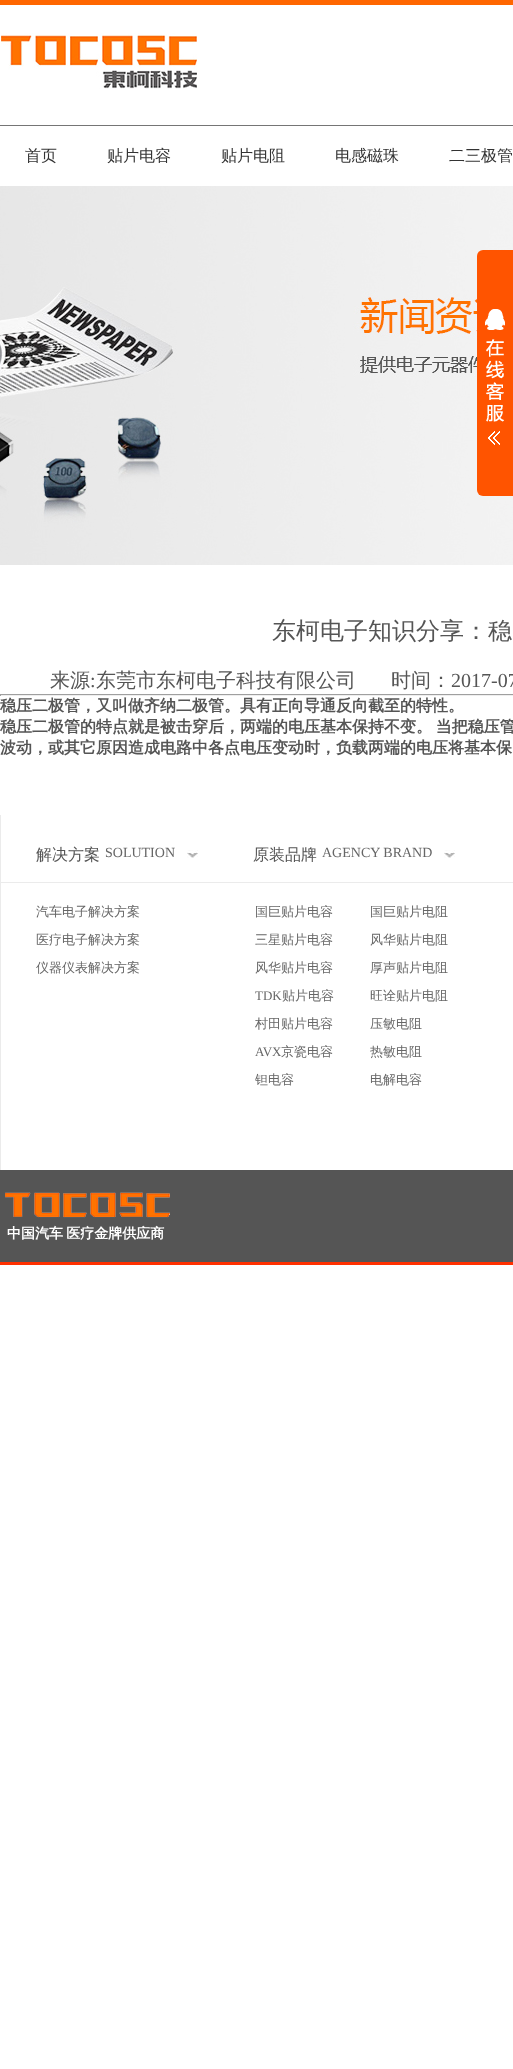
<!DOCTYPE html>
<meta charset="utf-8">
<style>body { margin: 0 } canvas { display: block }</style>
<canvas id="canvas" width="513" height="2069"></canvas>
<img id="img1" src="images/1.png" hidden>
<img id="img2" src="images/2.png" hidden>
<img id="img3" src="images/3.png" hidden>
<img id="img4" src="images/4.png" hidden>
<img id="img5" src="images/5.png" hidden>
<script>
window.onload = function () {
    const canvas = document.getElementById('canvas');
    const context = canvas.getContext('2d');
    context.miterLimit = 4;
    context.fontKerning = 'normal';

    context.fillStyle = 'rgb(255, 255, 255)';
    context.fillRect(0, 0, 513, 2069);
    context.fillStyle = 'rgb(255, 102, 0)';
    context.fillRect(0, 0, 513, 5);
    context.fillStyle = 'rgb(117, 117, 117)';
    context.fillRect(0, 125, 513, 1);
    context.drawImage(document.getElementById('img1'), 1, 33, 196, 56);
    context.drawImage(document.getElementById('img2'), 0, 186, 513, 379);
    context.fillStyle = 'rgb(255, 84, 0)';
    context.beginPath();
    context.roundRect(477, 250, 36, 246, [6, 0, 0, 6]);
    context.fill();
    context.drawImage(document.getElementById('img3'), 485, 309, 20, 136);
    context.fillStyle = 'rgb(159, 159, 159)';
    context.fillRect(0, 694, 513, 1);
    context.fillStyle = 'rgb(238, 238, 238)';
    context.fillRect(0, 695, 513, 1);
    context.fillStyle = 'rgb(159, 159, 159)';
    context.fillRect(0, 694, 1, 2);
    context.fillStyle = 'rgb(235, 235, 235)';
    context.fillRect(0, 815, 1, 355);
    context.fillRect(1, 882, 512, 1);
    context.drawImage(document.getElementById('img4'), 187, 850, 11, 8);
    context.drawImage(document.getElementById('img4'), 444, 850, 11, 8);
    context.fillStyle = 'rgb(85, 85, 85)';
    context.fillRect(0, 1170, 513, 92);
    context.fillStyle = 'rgb(255, 48, 0)';
    context.fillRect(0, 1262, 513, 3);
    context.drawImage(document.getElementById('img5'), 5, 1192, 165, 26);
    context.font = '500 16px WenQuanYi Zen Hei';
    context.fillStyle = 'rgb(51, 51, 51)';
    context.fillText('首页', 25, 161);
    context.fillText('贴片电容', 107, 161);
    context.fillText('贴片电阻', 221, 161);
    context.fillText('电感磁珠', 335, 161);
    context.fillText('二三极管', 449, 161);
    context.font = '500 24px WenQuanYi Zen Hei';
    context.fillStyle = 'rgb(85, 85, 85)';
    context.fillText('东柯电子知识分享：稳', 272, 639);
    context.font = '500 20px WenQuanYi Zen Hei';
    context.fillText('来源', 50, 687);
    context.font = '20px Liberation Serif';
    context.fillText(':', 90, 687);
    context.font = '500 20px WenQuanYi Zen Hei';
    context.fillText('东莞市东柯电子科技有限公司', 96, 687);
    context.fillText('时间：', 391, 687);
    context.font = '20px Liberation Serif';
    context.fillText('2017-07', 451, 687);
    context.font = 'bold 16px WenQuanYi Zen Hei';
    context.fillText('稳压二极管，又叫做齐纳二极管。具有正向导通反向截至的特性。', 0, 711);
    context.wordSpacing = '-1px';
    context.fillText('稳压二极管的特点就是被击穿后，两端的电压基本保持不变。 当把稳压管', 0, 732);
    context.wordSpacing = '0px';
    context.fillText('波动，或其它原因造成电路中各点电压变动时，负载两端的电压将基本保', 0, 753);
    context.font = '500 16px WenQuanYi Zen Hei';
    context.fillText('解决方案', 36, 860);
    context.font = '14px Liberation Serif';
    context.fillStyle = 'rgb(102, 102, 102)';
    context.fillText('SOLUTION', 105, 857);
    context.font = '500 16px WenQuanYi Zen Hei';
    context.fillStyle = 'rgb(85, 85, 85)';
    context.fillText('原装品牌', 253, 860);
    context.font = '14px Liberation Serif';
    context.fillStyle = 'rgb(102, 102, 102)';
    context.fillText('AGENCY BRAND', 322, 857);
    context.font = '500 13px WenQuanYi Zen Hei';
    context.fillText('汽车电子解决方案', 36, 916);
    context.fillText('医疗电子解决方案', 36, 944);
    context.fillText('仪器仪表解决方案', 36, 972);
    context.fillText('国巨贴片电容', 255, 916);
    context.fillText('国巨贴片电阻', 370, 916);
    context.fillText('三星贴片电容', 255, 944);
    context.fillText('风华贴片电阻', 370, 944);
    context.fillText('风华贴片电容', 255, 972);
    context.fillText('厚声贴片电阻', 370, 972);
    context.font = '13px Liberation Serif';
    context.fillText('TDK', 255, 1000);
    context.font = '500 13px WenQuanYi Zen Hei';
    context.fillText('贴片电容', 282, 1000);
    context.fillText('旺诠贴片电阻', 370, 1000);
    context.fillText('村田贴片电容', 255, 1028);
    context.fillText('压敏电阻', 370, 1028);
    context.font = '13px Liberation Serif';
    context.fillText('AVX', 255, 1056);
    context.font = '500 13px WenQuanYi Zen Hei';
    context.fillText('京瓷电容', 281, 1056);
    context.fillText('热敏电阻', 370, 1056);
    context.fillText('钽电容', 255, 1084);
    context.fillText('电解电容', 370, 1084);
    context.wordSpacing = '-1px';
    context.font = 'bold 14px WenQuanYi Zen Hei';
    context.fillStyle = 'rgb(255, 255, 255)';
    context.fillText('中国汽车 医疗金牌供应商', 7, 1238);
};
</script>
